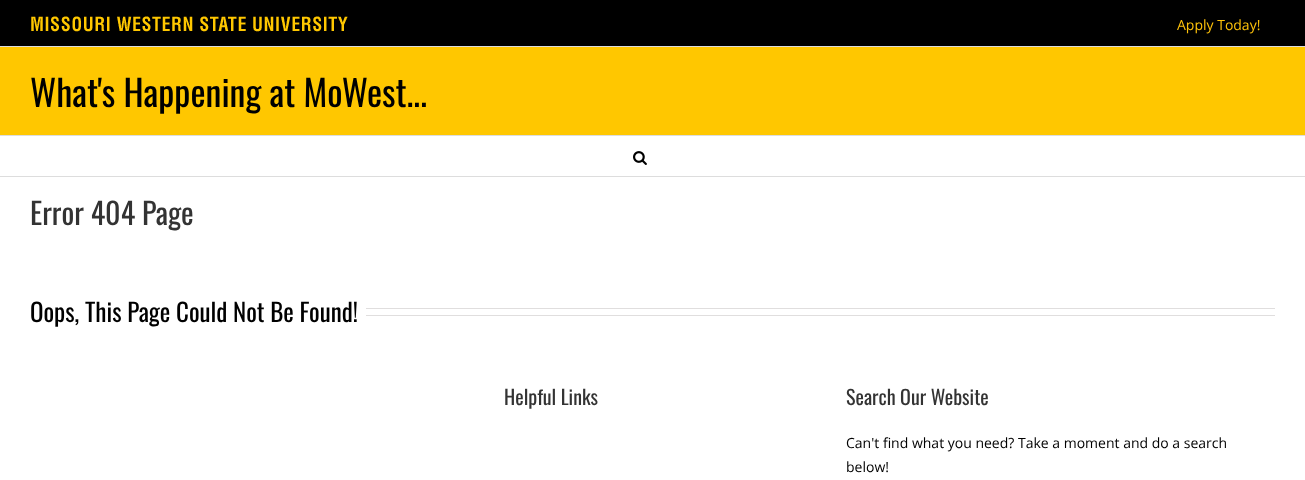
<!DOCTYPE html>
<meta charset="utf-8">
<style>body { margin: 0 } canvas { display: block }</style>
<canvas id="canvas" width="1305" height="480"></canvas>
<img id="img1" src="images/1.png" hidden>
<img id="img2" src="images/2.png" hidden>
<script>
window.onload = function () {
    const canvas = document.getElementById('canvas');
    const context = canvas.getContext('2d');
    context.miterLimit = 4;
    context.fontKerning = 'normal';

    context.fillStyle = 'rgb(255, 255, 255)';
    context.fillRect(0, 0, 1305, 480);
    context.fillStyle = 'rgb(0, 0, 0)';
    context.fillRect(0, 0, 1305, 46);
    context.drawImage(document.getElementById('img1'), 31, 16, 317, 16);
    context.fillStyle = 'rgb(221, 221, 221)';
    context.fillRect(0, 46, 1305, 1);
    context.fillStyle = 'rgb(255, 199, 0)';
    context.fillRect(0, 47, 1305, 88);
    context.fillStyle = 'rgb(221, 221, 221)';
    context.fillRect(0, 135, 1305, 1);
    context.fillRect(0, 176, 1305, 1);
    context.drawImage(document.getElementById('img2'), 633, 151, 14, 14);
    context.fillStyle = 'rgb(224, 222, 222)';
    context.fillRect(366, 308, 909, 1);
    context.fillRect(366, 315, 909, 1);
    context.font = '14px Open Sans';
    context.fillStyle = 'rgb(254, 194, 10)';
    context.fillText('Apply Today!', 1177, 30);
    context.font = '36px Oswald';
    context.fillStyle = 'rgb(0, 0, 0)';
    context.fillText('What\'s Happening at MoWest...', 30, 107);
    context.font = '30px Oswald';
    context.fillStyle = 'rgb(51, 51, 51)';
    context.fillText('Error 404 Page', 30, 225);
    context.font = '25px Oswald';
    context.fillStyle = 'rgb(0, 0, 0)';
    context.fillText('Oops, This Page Could Not Be Found!', 30, 322);
    context.font = '20px Oswald';
    context.fillStyle = 'rgb(51, 51, 51)';
    context.fillText('Helpful Links', 504, 405);
    context.fillText('Search Our Website', 846, 405);
    context.font = '14px Open Sans';
    context.fillStyle = 'rgb(0, 0, 0)';
    context.fillText('Can\'t find what you need? Take a moment and do a search', 846, 448);
    context.fillText('below!', 846, 472);
};
</script>
